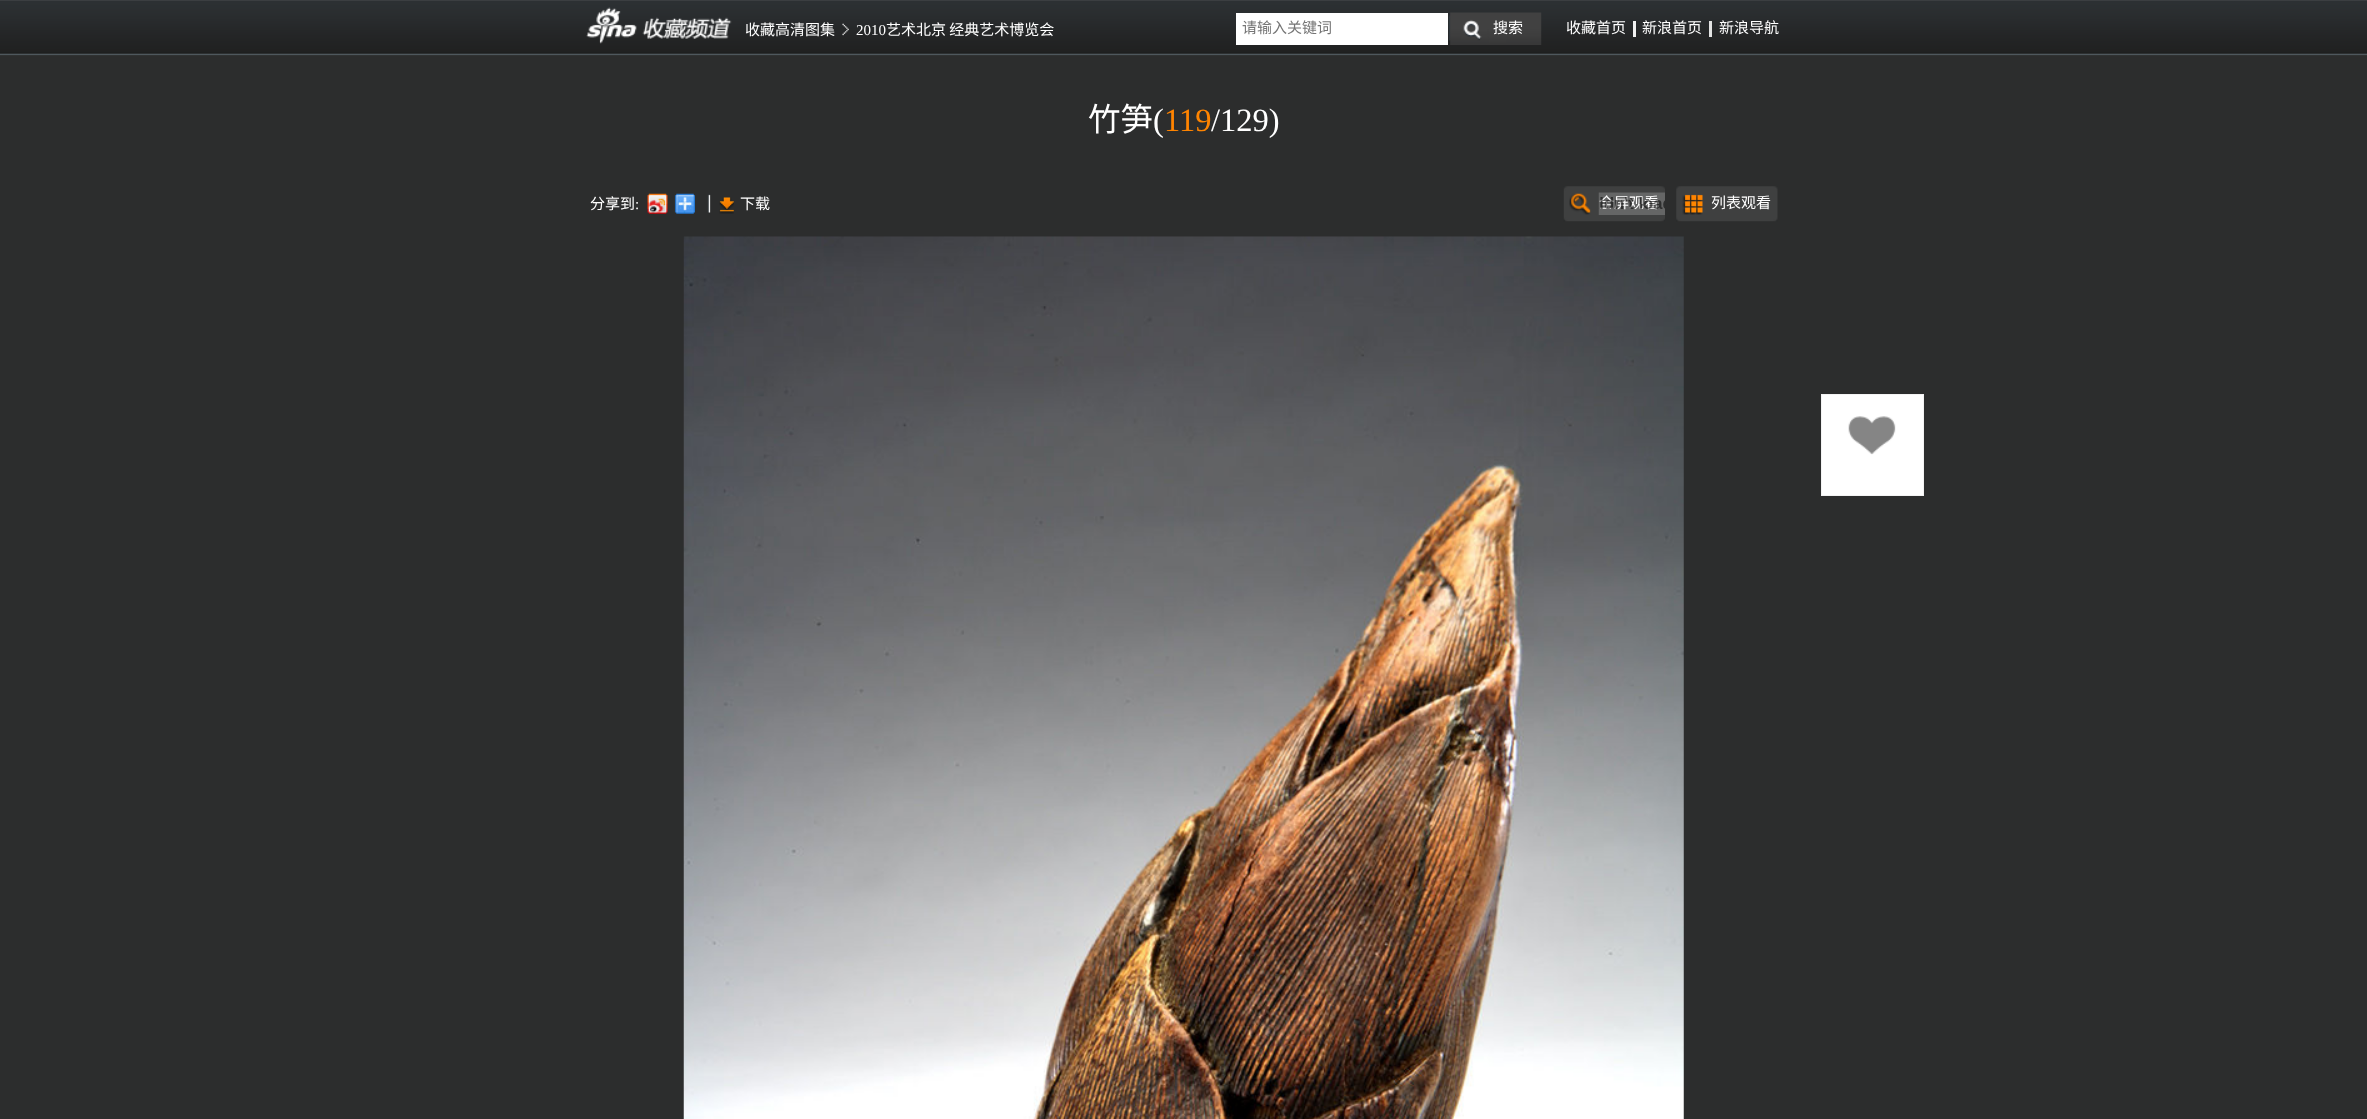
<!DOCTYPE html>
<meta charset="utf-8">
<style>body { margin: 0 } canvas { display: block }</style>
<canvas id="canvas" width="2367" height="1119"></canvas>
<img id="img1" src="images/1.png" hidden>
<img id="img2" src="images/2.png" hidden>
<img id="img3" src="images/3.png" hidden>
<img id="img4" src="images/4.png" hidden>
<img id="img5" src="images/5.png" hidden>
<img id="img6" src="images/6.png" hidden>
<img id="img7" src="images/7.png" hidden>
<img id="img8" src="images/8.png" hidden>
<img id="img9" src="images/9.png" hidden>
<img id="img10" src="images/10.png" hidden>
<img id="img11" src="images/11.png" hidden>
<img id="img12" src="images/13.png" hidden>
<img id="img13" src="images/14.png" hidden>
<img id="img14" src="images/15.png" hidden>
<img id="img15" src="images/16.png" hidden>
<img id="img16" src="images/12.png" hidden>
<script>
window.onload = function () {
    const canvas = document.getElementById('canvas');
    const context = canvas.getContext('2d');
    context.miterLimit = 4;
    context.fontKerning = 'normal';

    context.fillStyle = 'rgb(44, 45, 45)';
    context.fillRect(0, 0, 2367, 1119);
    context.drawImage(document.getElementById('img1'), 0, 0, 2367, 56);
    context.drawImage(document.getElementById('img2'), 586, 7, 51, 37);
    context.drawImage(document.getElementById('img3'), 642, 17, 90, 22);
    context.drawImage(document.getElementById('img4'), 842, 23, 7, 13);
    context.fillStyle = 'rgb(255, 255, 255)';
    context.fillRect(1236, 13, 212, 32);
    context.drawImage(document.getElementById('img5'), 1448, 12, 94, 33);
    context.fillStyle = 'rgba(255, 255, 255, 0.94)';
    context.fillRect(1633, 21, 3, 16);
    context.fillStyle = 'rgba(255, 255, 255, 0.87)';
    context.fillRect(1709, 21, 3, 16);
    context.drawImage(document.getElementById('img6'), 647, 193, 21, 21);
    context.drawImage(document.getElementById('img7'), 674, 193, 21, 21);
    context.drawImage(document.getElementById('img8'), 707, 194, 4, 19);
    context.drawImage(document.getElementById('img9'), 719, 197, 15, 17);
    context.drawImage(document.getElementById('img10'), 1563, 186, 102, 36);
    context.drawImage(document.getElementById('img11'), 1569, 193, 22, 22);
    context.drawImage(document.getElementById('img12'), 1676, 186, 102, 36);
    context.drawImage(document.getElementById('img13'), 1682, 194, 21, 21);
    context.drawImage(document.getElementById('img14'), 683, 236, 1001, 883);
    context.fillStyle = 'rgb(255, 255, 255)';
    context.fillRect(1822, 395, 101, 100);
    context.drawImage(document.getElementById('img15'), 1848, 416, 48, 39);
    context.strokeStyle = 'rgb(243, 243, 243)';
    context.strokeRect(1821.5, 394.5, 102, 101);
    context.font = '15px Noto Sans CJK SC';
    context.fillText('收藏高清图集', 745, 35);
    context.font = '15px Liberation Serif';
    context.fillText('2010', 856, 35);
    context.font = '15px Noto Sans CJK SC';
    context.fillText('艺术北京 经典艺术博览会', 886, 35);
    context.fillStyle = 'rgb(117, 117, 117)';
    context.fillText('请输入关键词', 1242, 33);
    context.fillStyle = 'rgb(255, 255, 255)';
    context.fillText('搜索', 1493, 33);
    context.fillText('收藏首页', 1566, 33);
    context.fillText('新浪首页', 1642, 33);
    context.fillText('新浪导航', 1719, 33);
    context.font = '32.5px Noto Sans CJK SC';
    context.fillText('竹笋', 1088, 131);
    context.font = '32.5px Liberation Serif';
    context.fillText('(', 1153, 131);
    context.fillStyle = 'rgb(255, 132, 0)';
    context.fillText('119', 1164, 131);
    context.fillStyle = 'rgb(255, 255, 255)';
    context.fillText('/129)', 1211, 131);
    context.font = '15px Noto Sans CJK SC';
    context.fillText('分享到', 590, 209);
    context.font = '15px Liberation Serif';
    context.fillText(':', 635, 209);
    context.font = '15px Noto Sans CJK SC';
    context.fillText('下载', 740, 209);
    context.fillText('全屏观看', 1599, 208);
    context.drawImage(document.getElementById('img16'), 1598, 192, 67, 23);
    context.fillText('列表观看', 1711, 208);
};
</script>
